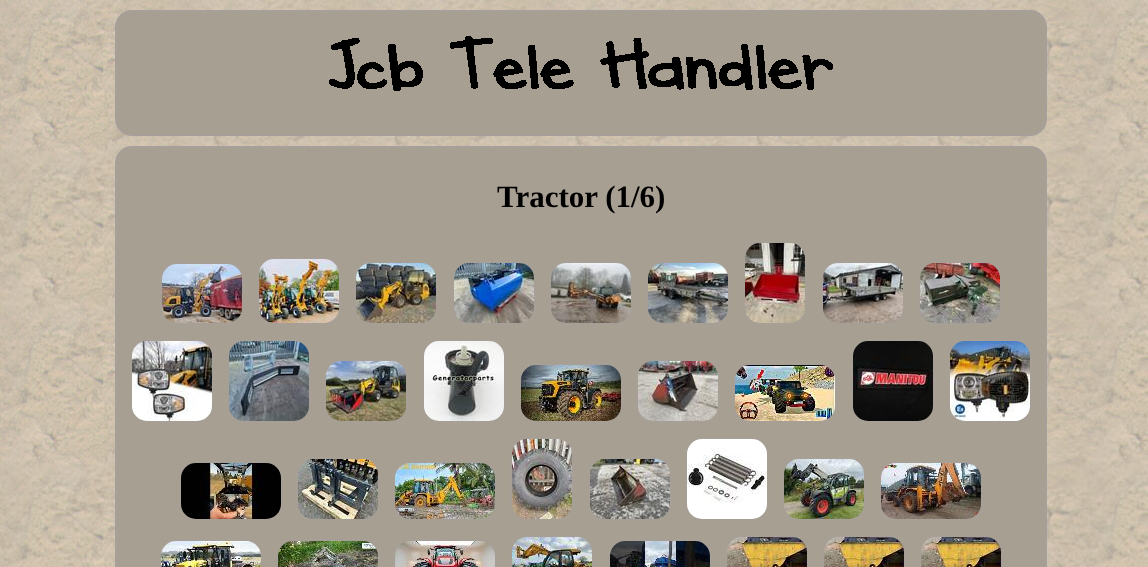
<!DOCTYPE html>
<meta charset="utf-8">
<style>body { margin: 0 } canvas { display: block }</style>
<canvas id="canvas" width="1148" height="567"></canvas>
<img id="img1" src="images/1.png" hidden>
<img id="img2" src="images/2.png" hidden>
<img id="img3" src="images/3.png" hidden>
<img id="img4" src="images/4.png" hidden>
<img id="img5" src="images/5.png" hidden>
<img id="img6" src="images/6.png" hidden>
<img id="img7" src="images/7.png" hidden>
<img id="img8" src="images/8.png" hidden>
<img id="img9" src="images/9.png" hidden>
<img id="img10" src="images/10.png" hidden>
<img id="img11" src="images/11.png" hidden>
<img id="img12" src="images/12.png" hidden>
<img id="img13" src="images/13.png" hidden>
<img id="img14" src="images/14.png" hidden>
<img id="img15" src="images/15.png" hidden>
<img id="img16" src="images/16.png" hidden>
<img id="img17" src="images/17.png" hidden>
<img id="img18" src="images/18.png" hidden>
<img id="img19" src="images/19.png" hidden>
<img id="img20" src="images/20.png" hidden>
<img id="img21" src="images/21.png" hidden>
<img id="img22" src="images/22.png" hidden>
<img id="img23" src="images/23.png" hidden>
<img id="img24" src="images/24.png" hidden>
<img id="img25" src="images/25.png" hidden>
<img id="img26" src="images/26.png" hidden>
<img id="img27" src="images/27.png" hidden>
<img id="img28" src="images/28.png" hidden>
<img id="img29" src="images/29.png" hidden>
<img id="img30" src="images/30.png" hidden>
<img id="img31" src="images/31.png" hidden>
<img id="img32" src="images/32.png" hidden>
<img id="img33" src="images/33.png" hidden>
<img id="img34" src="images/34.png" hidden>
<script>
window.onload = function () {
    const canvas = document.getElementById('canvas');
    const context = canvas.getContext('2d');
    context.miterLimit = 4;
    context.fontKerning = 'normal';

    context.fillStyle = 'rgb(255, 255, 255)';
    context.fillRect(0, 0, 1148, 567);
    context.drawImage(document.getElementById('img1'), 0, 0, 1148, 567);
    context.fillStyle = 'rgb(167, 159, 146)';
    context.beginPath();
    context.roundRect(116, 11, 930, 124, 16);
    context.fill();
    context.strokeStyle = 'rgb(167, 160, 154)';
    context.lineWidth = 2;
    context.stroke();
    context.drawImage(document.getElementById('img2'), 329, 36, 504, 55);
    context.beginPath();
    context.roundRect(116, 147, 930, 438, 16);
    context.fill();
    context.stroke();
    context.beginPath();
    context.moveTo(760, 242);
    context.lineTo(790, 242);
    context.bezierCurveTo(799, 242, 806, 249, 806, 258);
    context.lineTo(806, 308);
    context.bezierCurveTo(806, 317, 799, 324, 790, 324);
    context.lineTo(760, 324);
    context.bezierCurveTo(751, 324, 744, 317, 744, 308);
    context.lineTo(744, 258);
    context.bezierCurveTo(744, 249, 751, 242, 760, 242);
    context.closePath();
    context.setLineDash([2, 2]);
    context.stroke();
    context.beginPath();
    context.moveTo(274, 258);
    context.lineTo(324, 258);
    context.bezierCurveTo(333, 258, 340, 265, 340, 274);
    context.lineTo(340, 308);
    context.bezierCurveTo(340, 317, 333, 324, 324, 324);
    context.lineTo(274, 324);
    context.bezierCurveTo(265, 324, 258, 317, 258, 308);
    context.lineTo(258, 274);
    context.bezierCurveTo(258, 265, 265, 258, 274, 258);
    context.closePath();
    context.stroke();
    context.drawImage(document.getElementById('img3'), 745, 243, 60, 80);
    context.beginPath();
    context.moveTo(177, 263);
    context.lineTo(227, 263);
    context.bezierCurveTo(236, 263, 243, 270, 243, 279);
    context.lineTo(243, 308);
    context.bezierCurveTo(243, 317, 236, 324, 227, 324);
    context.lineTo(177, 324);
    context.bezierCurveTo(168, 324, 161, 317, 161, 308);
    context.lineTo(161, 279);
    context.bezierCurveTo(161, 270, 168, 263, 177, 263);
    context.closePath();
    context.stroke();
    context.drawImage(document.getElementById('img4'), 259, 259, 80, 64);
    context.beginPath();
    context.moveTo(371, 262);
    context.lineTo(421, 262);
    context.bezierCurveTo(430, 262, 437, 269, 437, 278);
    context.lineTo(437, 308);
    context.bezierCurveTo(437, 317, 430, 324, 421, 324);
    context.lineTo(371, 324);
    context.bezierCurveTo(362, 324, 355, 317, 355, 308);
    context.lineTo(355, 278);
    context.bezierCurveTo(355, 269, 362, 262, 371, 262);
    context.closePath();
    context.stroke();
    context.beginPath();
    context.moveTo(469, 262);
    context.lineTo(519, 262);
    context.bezierCurveTo(528, 262, 535, 269, 535, 278);
    context.lineTo(535, 308);
    context.bezierCurveTo(535, 317, 528, 324, 519, 324);
    context.lineTo(469, 324);
    context.bezierCurveTo(460, 324, 453, 317, 453, 308);
    context.lineTo(453, 278);
    context.bezierCurveTo(453, 269, 460, 262, 469, 262);
    context.closePath();
    context.stroke();
    context.beginPath();
    context.moveTo(566, 262);
    context.lineTo(616, 262);
    context.bezierCurveTo(625, 262, 632, 269, 632, 278);
    context.lineTo(632, 308);
    context.bezierCurveTo(632, 317, 625, 324, 616, 324);
    context.lineTo(566, 324);
    context.bezierCurveTo(557, 324, 550, 317, 550, 308);
    context.lineTo(550, 278);
    context.bezierCurveTo(550, 269, 557, 262, 566, 262);
    context.closePath();
    context.stroke();
    context.beginPath();
    context.moveTo(663, 262);
    context.lineTo(713, 262);
    context.bezierCurveTo(722, 262, 729, 269, 729, 278);
    context.lineTo(729, 308);
    context.bezierCurveTo(729, 317, 722, 324, 713, 324);
    context.lineTo(663, 324);
    context.bezierCurveTo(654, 324, 647, 317, 647, 308);
    context.lineTo(647, 278);
    context.bezierCurveTo(647, 269, 654, 262, 663, 262);
    context.closePath();
    context.stroke();
    context.beginPath();
    context.moveTo(838, 262);
    context.lineTo(888, 262);
    context.bezierCurveTo(897, 262, 904, 269, 904, 278);
    context.lineTo(904, 308);
    context.bezierCurveTo(904, 317, 897, 324, 888, 324);
    context.lineTo(838, 324);
    context.bezierCurveTo(829, 324, 822, 317, 822, 308);
    context.lineTo(822, 278);
    context.bezierCurveTo(822, 269, 829, 262, 838, 262);
    context.closePath();
    context.stroke();
    context.beginPath();
    context.moveTo(935, 262);
    context.lineTo(985, 262);
    context.bezierCurveTo(994, 262, 1001, 269, 1001, 278);
    context.lineTo(1001, 308);
    context.bezierCurveTo(1001, 317, 994, 324, 985, 324);
    context.lineTo(935, 324);
    context.bezierCurveTo(926, 324, 919, 317, 919, 308);
    context.lineTo(919, 278);
    context.bezierCurveTo(919, 269, 926, 262, 935, 262);
    context.closePath();
    context.stroke();
    context.drawImage(document.getElementById('img5'), 162, 264, 80, 59);
    context.drawImage(document.getElementById('img6'), 356, 263, 80, 60);
    context.drawImage(document.getElementById('img7'), 454, 263, 80, 60);
    context.drawImage(document.getElementById('img8'), 551, 263, 80, 60);
    context.drawImage(document.getElementById('img9'), 648, 263, 80, 60);
    context.drawImage(document.getElementById('img10'), 823, 263, 80, 60);
    context.drawImage(document.getElementById('img11'), 920, 263, 80, 60);
    context.beginPath();
    context.moveTo(147, 340);
    context.lineTo(197, 340);
    context.bezierCurveTo(206, 340, 213, 347, 213, 356);
    context.lineTo(213, 406);
    context.bezierCurveTo(213, 415, 206, 422, 197, 422);
    context.lineTo(147, 422);
    context.bezierCurveTo(138, 422, 131, 415, 131, 406);
    context.lineTo(131, 356);
    context.bezierCurveTo(131, 347, 138, 340, 147, 340);
    context.closePath();
    context.stroke();
    context.beginPath();
    context.moveTo(244, 340);
    context.lineTo(294, 340);
    context.bezierCurveTo(303, 340, 310, 347, 310, 356);
    context.lineTo(310, 406);
    context.bezierCurveTo(310, 415, 303, 422, 294, 422);
    context.lineTo(244, 422);
    context.bezierCurveTo(235, 422, 228, 415, 228, 406);
    context.lineTo(228, 356);
    context.bezierCurveTo(228, 347, 235, 340, 244, 340);
    context.closePath();
    context.stroke();
    context.beginPath();
    context.moveTo(439, 340);
    context.lineTo(489, 340);
    context.bezierCurveTo(498, 340, 505, 347, 505, 356);
    context.lineTo(505, 406);
    context.bezierCurveTo(505, 415, 498, 422, 489, 422);
    context.lineTo(439, 422);
    context.bezierCurveTo(430, 422, 423, 415, 423, 406);
    context.lineTo(423, 356);
    context.bezierCurveTo(423, 347, 430, 340, 439, 340);
    context.closePath();
    context.stroke();
    context.beginPath();
    context.moveTo(868, 340);
    context.lineTo(918, 340);
    context.bezierCurveTo(927, 340, 934, 347, 934, 356);
    context.lineTo(934, 406);
    context.bezierCurveTo(934, 415, 927, 422, 918, 422);
    context.lineTo(868, 422);
    context.bezierCurveTo(859, 422, 852, 415, 852, 406);
    context.lineTo(852, 356);
    context.bezierCurveTo(852, 347, 859, 340, 868, 340);
    context.closePath();
    context.stroke();
    context.beginPath();
    context.moveTo(965, 340);
    context.lineTo(1015, 340);
    context.bezierCurveTo(1024, 340, 1031, 347, 1031, 356);
    context.lineTo(1031, 406);
    context.bezierCurveTo(1031, 415, 1024, 422, 1015, 422);
    context.lineTo(965, 422);
    context.bezierCurveTo(956, 422, 949, 415, 949, 406);
    context.lineTo(949, 356);
    context.bezierCurveTo(949, 347, 956, 340, 965, 340);
    context.closePath();
    context.stroke();
    context.drawImage(document.getElementById('img12'), 132, 341, 80, 80);
    context.drawImage(document.getElementById('img13'), 229, 341, 80, 80);
    context.beginPath();
    context.moveTo(341, 360);
    context.lineTo(391, 360);
    context.bezierCurveTo(400, 360, 407, 367, 407, 376);
    context.lineTo(407, 406);
    context.bezierCurveTo(407, 415, 400, 422, 391, 422);
    context.lineTo(341, 422);
    context.bezierCurveTo(332, 422, 325, 415, 325, 406);
    context.lineTo(325, 376);
    context.bezierCurveTo(325, 367, 332, 360, 341, 360);
    context.closePath();
    context.stroke();
    context.drawImage(document.getElementById('img14'), 424, 341, 80, 80);
    context.beginPath();
    context.moveTo(653, 360);
    context.lineTo(703, 360);
    context.bezierCurveTo(712, 360, 719, 367, 719, 376);
    context.lineTo(719, 406);
    context.bezierCurveTo(719, 415, 712, 422, 703, 422);
    context.lineTo(653, 422);
    context.bezierCurveTo(644, 422, 637, 415, 637, 406);
    context.lineTo(637, 376);
    context.bezierCurveTo(637, 367, 644, 360, 653, 360);
    context.closePath();
    context.stroke();
    context.drawImage(document.getElementById('img15'), 853, 341, 80, 80);
    context.drawImage(document.getElementById('img16'), 950, 341, 80, 80);
    context.drawImage(document.getElementById('img17'), 326, 361, 80, 60);
    context.beginPath();
    context.moveTo(536, 364);
    context.lineTo(606, 364);
    context.bezierCurveTo(615, 364, 622, 371, 622, 380);
    context.lineTo(622, 406);
    context.bezierCurveTo(622, 415, 615, 422, 606, 422);
    context.lineTo(536, 422);
    context.bezierCurveTo(527, 422, 520, 415, 520, 406);
    context.lineTo(520, 380);
    context.bezierCurveTo(520, 371, 527, 364, 536, 364);
    context.closePath();
    context.stroke();
    context.drawImage(document.getElementById('img18'), 638, 361, 80, 60);
    context.beginPath();
    context.moveTo(750, 364);
    context.lineTo(820, 364);
    context.bezierCurveTo(829, 364, 836, 371, 836, 380);
    context.lineTo(836, 406);
    context.bezierCurveTo(836, 415, 829, 422, 820, 422);
    context.lineTo(750, 422);
    context.bezierCurveTo(741, 422, 734, 415, 734, 406);
    context.lineTo(734, 380);
    context.bezierCurveTo(734, 371, 741, 364, 750, 364);
    context.closePath();
    context.stroke();
    context.drawImage(document.getElementById('img19'), 521, 365, 100, 56);
    context.drawImage(document.getElementById('img20'), 735, 365, 100, 56);
    context.beginPath();
    context.moveTo(527, 438);
    context.lineTo(557, 438);
    context.bezierCurveTo(566, 438, 573, 445, 573, 454);
    context.lineTo(573, 504);
    context.bezierCurveTo(573, 513, 566, 520, 557, 520);
    context.lineTo(527, 520);
    context.bezierCurveTo(518, 520, 511, 513, 511, 504);
    context.lineTo(511, 454);
    context.bezierCurveTo(511, 445, 518, 438, 527, 438);
    context.closePath();
    context.stroke();
    context.beginPath();
    context.moveTo(702, 438);
    context.lineTo(752, 438);
    context.bezierCurveTo(761, 438, 768, 445, 768, 454);
    context.lineTo(768, 504);
    context.bezierCurveTo(768, 513, 761, 520, 752, 520);
    context.lineTo(702, 520);
    context.bezierCurveTo(693, 520, 686, 513, 686, 504);
    context.lineTo(686, 454);
    context.bezierCurveTo(686, 445, 693, 438, 702, 438);
    context.closePath();
    context.stroke();
    context.beginPath();
    context.moveTo(313, 458);
    context.lineTo(363, 458);
    context.bezierCurveTo(372, 458, 379, 465, 379, 474);
    context.lineTo(379, 504);
    context.bezierCurveTo(379, 513, 372, 520, 363, 520);
    context.lineTo(313, 520);
    context.bezierCurveTo(304, 520, 297, 513, 297, 504);
    context.lineTo(297, 474);
    context.bezierCurveTo(297, 465, 304, 458, 313, 458);
    context.closePath();
    context.stroke();
    context.drawImage(document.getElementById('img21'), 512, 439, 60, 80);
    context.beginPath();
    context.moveTo(605, 458);
    context.lineTo(655, 458);
    context.bezierCurveTo(664, 458, 671, 465, 671, 474);
    context.lineTo(671, 504);
    context.bezierCurveTo(671, 513, 664, 520, 655, 520);
    context.lineTo(605, 520);
    context.bezierCurveTo(596, 520, 589, 513, 589, 504);
    context.lineTo(589, 474);
    context.bezierCurveTo(589, 465, 596, 458, 605, 458);
    context.closePath();
    context.stroke();
    context.drawImage(document.getElementById('img22'), 687, 439, 80, 80);
    context.beginPath();
    context.moveTo(799, 458);
    context.lineTo(849, 458);
    context.bezierCurveTo(858, 458, 865, 465, 865, 474);
    context.lineTo(865, 504);
    context.bezierCurveTo(865, 513, 858, 520, 849, 520);
    context.lineTo(799, 520);
    context.bezierCurveTo(790, 520, 783, 513, 783, 504);
    context.lineTo(783, 474);
    context.bezierCurveTo(783, 465, 790, 458, 799, 458);
    context.closePath();
    context.stroke();
    context.beginPath();
    context.moveTo(196, 462);
    context.lineTo(266, 462);
    context.bezierCurveTo(275, 462, 282, 469, 282, 478);
    context.lineTo(282, 504);
    context.bezierCurveTo(282, 513, 275, 520, 266, 520);
    context.lineTo(196, 520);
    context.bezierCurveTo(187, 520, 180, 513, 180, 504);
    context.lineTo(180, 478);
    context.bezierCurveTo(180, 469, 187, 462, 196, 462);
    context.closePath();
    context.stroke();
    context.drawImage(document.getElementById('img23'), 298, 459, 80, 60);
    context.beginPath();
    context.moveTo(410, 462);
    context.lineTo(480, 462);
    context.bezierCurveTo(489, 462, 496, 469, 496, 478);
    context.lineTo(496, 504);
    context.bezierCurveTo(496, 513, 489, 520, 480, 520);
    context.lineTo(410, 520);
    context.bezierCurveTo(401, 520, 394, 513, 394, 504);
    context.lineTo(394, 478);
    context.bezierCurveTo(394, 469, 401, 462, 410, 462);
    context.closePath();
    context.stroke();
    context.drawImage(document.getElementById('img24'), 590, 459, 80, 60);
    context.drawImage(document.getElementById('img25'), 784, 459, 80, 60);
    context.beginPath();
    context.moveTo(896, 462);
    context.lineTo(966, 462);
    context.bezierCurveTo(975, 462, 982, 469, 982, 478);
    context.lineTo(982, 504);
    context.bezierCurveTo(982, 513, 975, 520, 966, 520);
    context.lineTo(896, 520);
    context.bezierCurveTo(887, 520, 880, 513, 880, 504);
    context.lineTo(880, 478);
    context.bezierCurveTo(880, 469, 887, 462, 896, 462);
    context.closePath();
    context.stroke();
    context.drawImage(document.getElementById('img26'), 181, 463, 100, 56);
    context.drawImage(document.getElementById('img27'), 395, 463, 100, 56);
    context.drawImage(document.getElementById('img28'), 881, 463, 100, 56);
    context.beginPath();
    context.moveTo(527, 536);
    context.lineTo(577, 536);
    context.bezierCurveTo(586, 536, 593, 543, 593, 552);
    context.lineTo(593, 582);
    context.bezierCurveTo(593, 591, 586, 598, 577, 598);
    context.lineTo(527, 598);
    context.bezierCurveTo(518, 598, 511, 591, 511, 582);
    context.lineTo(511, 552);
    context.bezierCurveTo(511, 543, 518, 536, 527, 536);
    context.closePath();
    context.stroke();
    context.beginPath();
    context.moveTo(742, 536);
    context.lineTo(792, 536);
    context.bezierCurveTo(801, 536, 808, 543, 808, 552);
    context.lineTo(808, 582);
    context.bezierCurveTo(808, 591, 801, 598, 792, 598);
    context.lineTo(742, 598);
    context.bezierCurveTo(733, 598, 726, 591, 726, 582);
    context.lineTo(726, 552);
    context.bezierCurveTo(726, 543, 733, 536, 742, 536);
    context.closePath();
    context.stroke();
    context.beginPath();
    context.moveTo(839, 536);
    context.lineTo(889, 536);
    context.bezierCurveTo(898, 536, 905, 543, 905, 552);
    context.lineTo(905, 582);
    context.bezierCurveTo(905, 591, 898, 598, 889, 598);
    context.lineTo(839, 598);
    context.bezierCurveTo(830, 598, 823, 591, 823, 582);
    context.lineTo(823, 552);
    context.bezierCurveTo(823, 543, 830, 536, 839, 536);
    context.closePath();
    context.stroke();
    context.beginPath();
    context.moveTo(936, 536);
    context.lineTo(986, 536);
    context.bezierCurveTo(995, 536, 1002, 543, 1002, 552);
    context.lineTo(1002, 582);
    context.bezierCurveTo(1002, 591, 995, 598, 986, 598);
    context.lineTo(936, 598);
    context.bezierCurveTo(927, 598, 920, 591, 920, 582);
    context.lineTo(920, 552);
    context.bezierCurveTo(920, 543, 927, 536, 936, 536);
    context.closePath();
    context.stroke();
    context.beginPath();
    context.moveTo(176, 540);
    context.lineTo(246, 540);
    context.bezierCurveTo(255, 540, 262, 547, 262, 556);
    context.lineTo(262, 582);
    context.bezierCurveTo(262, 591, 255, 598, 246, 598);
    context.lineTo(176, 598);
    context.bezierCurveTo(167, 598, 160, 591, 160, 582);
    context.lineTo(160, 556);
    context.bezierCurveTo(160, 547, 167, 540, 176, 540);
    context.closePath();
    context.stroke();
    context.beginPath();
    context.moveTo(293, 540);
    context.lineTo(363, 540);
    context.bezierCurveTo(372, 540, 379, 547, 379, 556);
    context.lineTo(379, 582);
    context.bezierCurveTo(379, 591, 372, 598, 363, 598);
    context.lineTo(293, 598);
    context.bezierCurveTo(284, 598, 277, 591, 277, 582);
    context.lineTo(277, 556);
    context.bezierCurveTo(277, 547, 284, 540, 293, 540);
    context.closePath();
    context.stroke();
    context.beginPath();
    context.moveTo(410, 540);
    context.lineTo(480, 540);
    context.bezierCurveTo(489, 540, 496, 547, 496, 556);
    context.lineTo(496, 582);
    context.bezierCurveTo(496, 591, 489, 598, 480, 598);
    context.lineTo(410, 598);
    context.bezierCurveTo(401, 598, 394, 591, 394, 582);
    context.lineTo(394, 556);
    context.bezierCurveTo(394, 547, 401, 540, 410, 540);
    context.closePath();
    context.stroke();
    context.drawImage(document.getElementById('img29'), 512, 537, 80, 30);
    context.beginPath();
    context.moveTo(625, 540);
    context.lineTo(695, 540);
    context.bezierCurveTo(704, 540, 711, 547, 711, 556);
    context.lineTo(711, 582);
    context.bezierCurveTo(711, 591, 704, 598, 695, 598);
    context.lineTo(625, 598);
    context.bezierCurveTo(616, 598, 609, 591, 609, 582);
    context.lineTo(609, 556);
    context.bezierCurveTo(609, 547, 616, 540, 625, 540);
    context.closePath();
    context.stroke();
    context.drawImage(document.getElementById('img30'), 727, 537, 80, 30);
    context.drawImage(document.getElementById('img30'), 824, 537, 80, 30);
    context.drawImage(document.getElementById('img30'), 921, 537, 80, 30);
    context.drawImage(document.getElementById('img31'), 161, 541, 100, 26);
    context.drawImage(document.getElementById('img32'), 278, 541, 100, 26);
    context.drawImage(document.getElementById('img33'), 395, 541, 100, 26);
    context.drawImage(document.getElementById('img34'), 610, 541, 100, 26);
    context.font = 'bold 31px Liberation Serif';
    context.fillStyle = 'rgb(0, 0, 0)';
    context.fillText('Tractor (1/6)', 497, 207);
};
</script>
